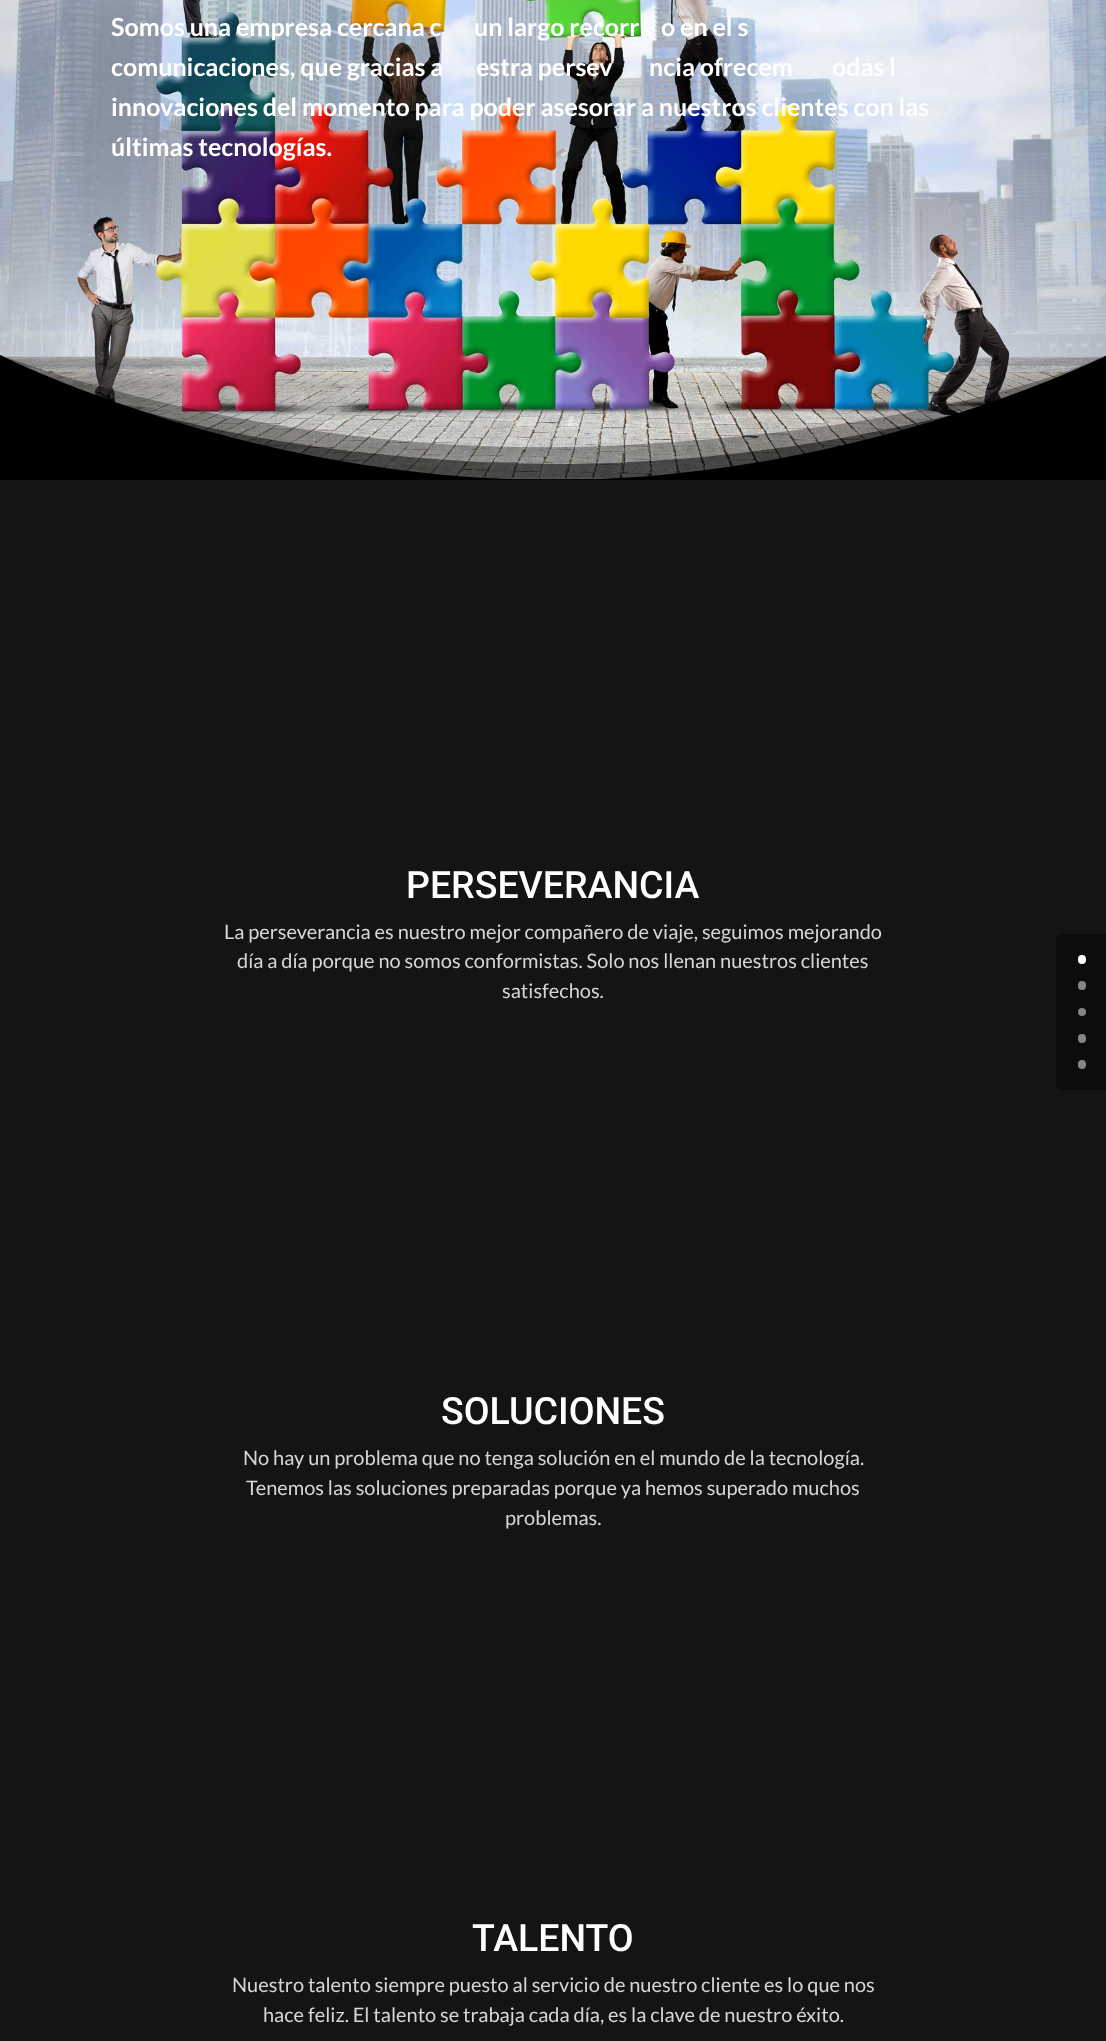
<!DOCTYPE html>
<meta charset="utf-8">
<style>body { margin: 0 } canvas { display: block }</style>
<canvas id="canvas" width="1106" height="2041"></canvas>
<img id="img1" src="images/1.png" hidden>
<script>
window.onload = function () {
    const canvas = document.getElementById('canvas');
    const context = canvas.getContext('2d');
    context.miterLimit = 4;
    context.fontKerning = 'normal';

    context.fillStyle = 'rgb(255, 255, 255)';
    context.fillRect(0, 0, 1106, 2041);
    context.drawImage(document.getElementById('img1'), 0, 0, 1106, 479);
    context.fillStyle = 'rgb(20, 20, 20)';
    context.fillRect(0, 479, 1106, 1562);
    context.fillStyle = 'rgba(0, 0, 0, 0.3)';
    context.beginPath();
    context.moveTo(627, 445);
    context.bezierCurveTo(281, 464, 0, 355, 0, 355);
    context.lineTo(0, 480);
    context.lineTo(1106, 480);
    context.lineTo(1106, 355);
    context.bezierCurveTo(1106, 355, 973, 426, 627, 445);
    context.closePath();
    context.fill();
    context.fillStyle = 'rgba(0, 0, 0, 0.5)';
    context.beginPath();
    context.moveTo(481, 462);
    context.bezierCurveTo(824, 480, 1106, 368, 1106, 368);
    context.lineTo(1106, 480);
    context.lineTo(0, 480);
    context.lineTo(0, 355);
    context.bezierCurveTo(0, 355, 138, 444, 481, 462);
    context.closePath();
    context.fill();
    context.save();
    context.beginPath();
    context.rect(0, 355, 1106, 125);
    context.clip();
    context.fillStyle = 'rgb(0, 0, 0)';
    context.beginPath();
    context.moveTo(553, 480);
    context.bezierCurveTo(859, 480, 1106, 355, 1106, 356);
    context.lineTo(1106, 481);
    context.lineTo(0, 481);
    context.lineTo(0, 355);
    context.bezierCurveTo(0, 355, 248, 480, 553, 480);
    context.closePath();
    context.fill();
    context.restore();
    context.fillStyle = 'rgb(12, 12, 12)';
    context.beginPath();
    context.roundRect(1056, 934, 50, 156, [6, 0, 0, 6]);
    context.fill();
    context.fillStyle = 'rgb(255, 255, 255)';
    context.beginPath();
    context.roundRect(1078, 955, 8, 9, 4);
    context.fill();
    context.fillStyle = 'rgb(134, 134, 134)';
    context.beginPath();
    context.roundRect(1078, 981, 8, 9, 4);
    context.fill();
    context.beginPath();
    context.arc(1082, 1012, 4, 0, 2 * Math.PI);
    context.fill();
    context.beginPath();
    context.roundRect(1078, 1034, 8, 9, 4);
    context.fill();
    context.beginPath();
    context.roundRect(1078, 1060, 8, 9, 4);
    context.fill();
    context.font = 'bold 25px Lato';
    context.fillStyle = 'rgb(255, 255, 255)';
    context.fillText('Somos una empresa cercana c', 111, 36);
    context.fillText('un largo recorr', 474, 36);
    context.fillText('o en el s', 661, 36);
    context.fillText('comunicaciones, que gracias a', 111, 76);
    context.fillText('estra persev', 476, 76);
    context.fillText('ncia ofrecem', 649, 76);
    context.fillText('odas l', 832, 76);
    context.fillText('innovaciones del momento para poder asesorar a nuestros clientes con las', 111, 116);
    context.fillText('últimas tecnologías.', 111, 156);
    context.font = '500 37.5px Roboto';
    context.fillText('PERSEVERANCIA', 406, 898);
    context.font = '20px Lato';
    context.fillStyle = 'rgb(214, 214, 214)';
    context.fillText('La perseverancia es nuestro mejor compañero de viaje, seguimos mejorando', 224, 939);
    context.fillText('día a día porque no somos conformistas. Solo nos llenan nuestros clientes', 237, 968);
    context.fillText('satisfechos.', 502, 998);
    context.font = '500 37.5px Roboto';
    context.fillStyle = 'rgb(255, 255, 255)';
    context.fillText('SOLUCIONES', 441, 1424);
    context.font = '20px Lato';
    context.fillStyle = 'rgb(214, 214, 214)';
    context.fillText('No hay un problema que no tenga solución en el mundo de la tecnología.', 243, 1465);
    context.fillText('Tenemos las soluciones preparadas porque ya hemos superado muchos', 246, 1495);
    context.fillText('problemas.', 505, 1525);
    context.font = '500 37.5px Roboto';
    context.fillStyle = 'rgb(255, 255, 255)';
    context.fillText('TALENTO', 472, 1951);
    context.font = '20px Lato';
    context.fillStyle = 'rgb(214, 214, 214)';
    context.fillText('Nuestro talento siempre puesto al servicio de nuestro cliente es lo que nos', 232, 1992);
    context.fillText('hace feliz. El talento se trabaja cada día, es la clave de nuestro éxito.', 263, 2022);
};
</script>
